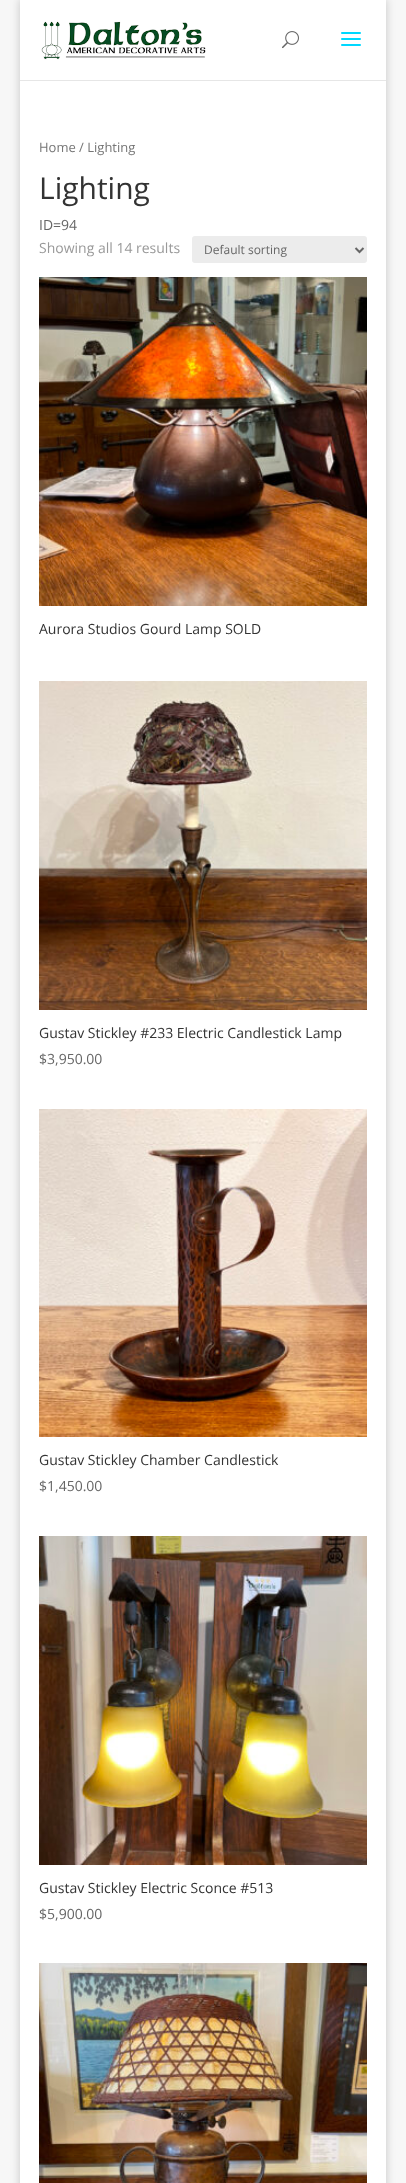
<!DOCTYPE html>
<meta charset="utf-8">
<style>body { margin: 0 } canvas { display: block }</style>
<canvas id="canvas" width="406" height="2183"></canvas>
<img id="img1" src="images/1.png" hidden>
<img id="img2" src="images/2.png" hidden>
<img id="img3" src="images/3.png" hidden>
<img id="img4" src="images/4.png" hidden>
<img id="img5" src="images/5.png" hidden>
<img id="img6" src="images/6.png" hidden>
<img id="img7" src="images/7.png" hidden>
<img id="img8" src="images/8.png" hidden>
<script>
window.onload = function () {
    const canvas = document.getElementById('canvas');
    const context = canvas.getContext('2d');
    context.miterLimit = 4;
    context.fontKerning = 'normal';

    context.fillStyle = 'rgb(247, 247, 247)';
    context.fillRect(0, 0, 406, 2183);
    context.fillStyle = 'rgba(0, 0, 0, 0.2)';
    context.filter = 'blur(5px)';
    context.beginPath();
    context.rect(20, -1, 366, 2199);
    context.fill();
    context.filter = 'none';
    context.fillStyle = 'rgb(230, 230, 230)';
    context.fillRect(20, 80, 366, 1);
    context.fillStyle = 'rgb(255, 255, 255)';
    context.fillRect(20, 0, 366, 80);
    context.drawImage(document.getElementById('img1'), 41, 21, 165, 39);
    context.drawImage(document.getElementById('img2'), 282, 31, 17, 18);
    context.drawImage(document.getElementById('img3'), 341, 32, 20, 14);
    context.fillRect(20, 81, 366, 2102);
    context.fillStyle = 'rgb(236, 236, 236)';
    context.beginPath();
    context.roundRect(192, 236, 175, 27, 3);
    context.fill();
    context.beginPath();
    context.moveTo(355.5, 248);
    context.lineTo(359.5, 252);
    context.lineTo(363.5, 248);
    context.strokeStyle = 'rgb(102, 102, 102)';
    context.lineWidth = 2;
    context.stroke();
    context.drawImage(document.getElementById('img4'), 39, 277, 328, 329);
    context.drawImage(document.getElementById('img5'), 39, 681, 328, 329);
    context.drawImage(document.getElementById('img6'), 39, 1109, 328, 328);
    context.drawImage(document.getElementById('img7'), 39, 1536, 328, 329);
    context.drawImage(document.getElementById('img8'), 39, 1963, 328, 220);
    context.font = '13px Open Sans';
    context.fillStyle = 'rgb(118, 118, 118)';
    context.fillText('Home / Lighting', 39, 152);
    context.font = '30px Open Sans';
    context.fillStyle = 'rgb(51, 51, 51)';
    context.fillText('Lighting', 39, 199);
    context.font = '14px Open Sans';
    context.fillStyle = 'rgb(102, 102, 102)';
    context.fillText('ID=94', 39, 230);
    context.fillStyle = 'rgb(153, 153, 153)';
    context.fillText('Showing all 14 results', 39, 253);
    context.font = '12px Open Sans';
    context.fillStyle = 'rgb(102, 102, 102)';
    context.fillText('Default sorting', 204, 254);
    context.font = '14px Open Sans';
    context.fillStyle = 'rgb(51, 51, 51)';
    context.fillText('Aurora Studios Gourd Lamp SOLD', 39, 634);
    context.fillText('Gustav Stickley #233 Electric Candlestick Lamp', 39, 1038);
    context.fillStyle = 'rgb(102, 102, 102)';
    context.fillText('$3,950.00', 39, 1064);
    context.fillStyle = 'rgb(51, 51, 51)';
    context.fillText('Gustav Stickley Chamber Candlestick', 39, 1465);
    context.fillStyle = 'rgb(102, 102, 102)';
    context.fillText('$1,450.00', 39, 1491);
    context.fillStyle = 'rgb(51, 51, 51)';
    context.fillText('Gustav Stickley Electric Sconce #513', 39, 1893);
    context.fillStyle = 'rgb(102, 102, 102)';
    context.fillText('$5,900.00', 39, 1919);
};
</script>
